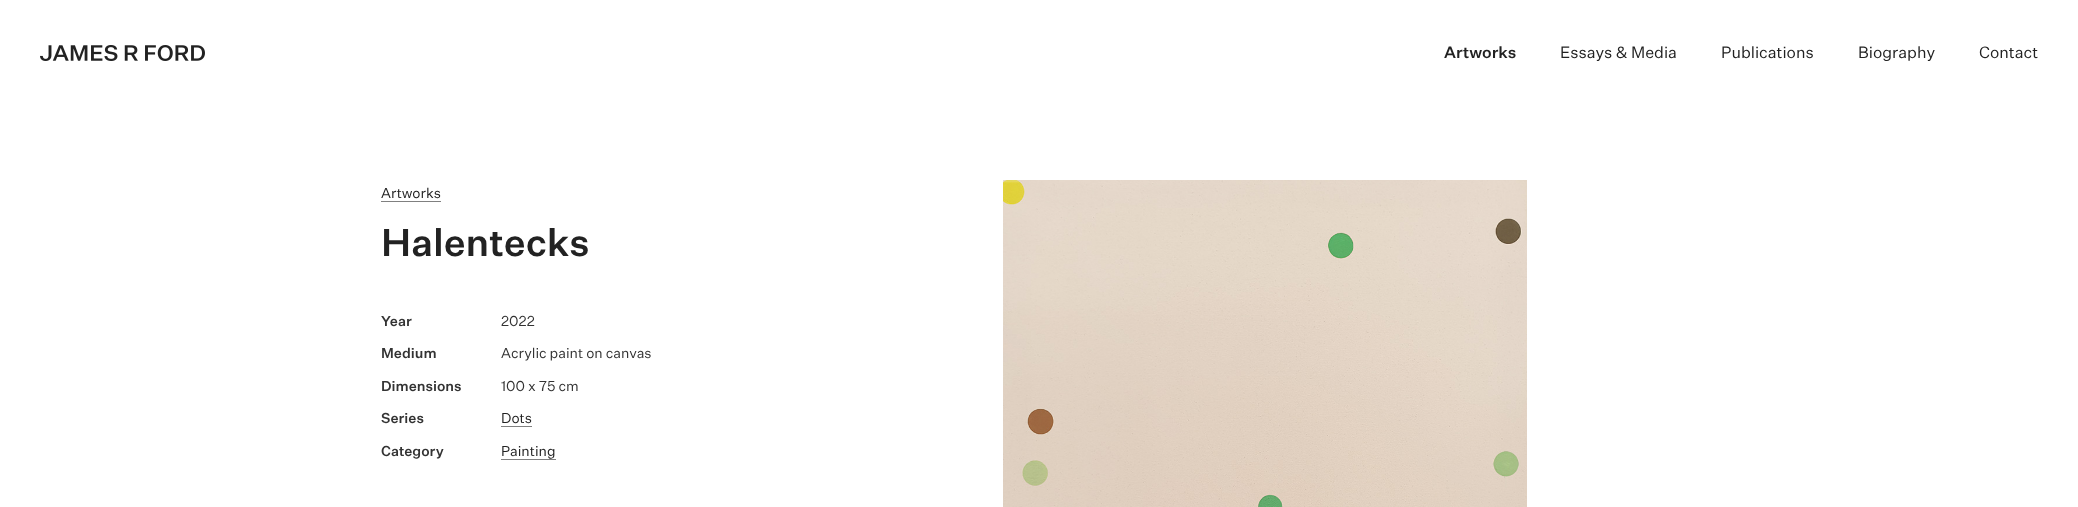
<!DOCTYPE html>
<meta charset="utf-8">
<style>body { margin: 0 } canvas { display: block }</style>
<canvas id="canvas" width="2078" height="507"></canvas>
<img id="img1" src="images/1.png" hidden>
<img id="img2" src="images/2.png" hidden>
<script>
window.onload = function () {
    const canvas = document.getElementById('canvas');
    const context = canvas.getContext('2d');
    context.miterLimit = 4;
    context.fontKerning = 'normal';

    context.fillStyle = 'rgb(255, 255, 255)';
    context.fillRect(0, 0, 2078, 507);
    context.drawImage(document.getElementById('img1'), 40, 45, 165, 16);
    context.fillStyle = 'rgb(128, 128, 128)';
    context.fillRect(381, 201, 60, 1);
    context.fillRect(501, 426, 31, 1);
    context.fillRect(501, 459, 55, 1);
    context.drawImage(document.getElementById('img2'), 1003, 180, 524, 327);
    context.font = '500 16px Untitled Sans';
    context.fillStyle = 'rgb(34, 34, 34)';
    context.fillText('Artworks', 1444, 58);
    context.font = '16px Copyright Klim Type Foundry';
    context.fillText('Essays & Media', 1560, 58);
    context.fillText('Publications', 1721, 58);
    context.fillText('Biography', 1858, 58);
    context.fillText('Contact', 1979, 58);
    context.font = '14px Copyright Klim Type Foundry';
    context.fillText('Artworks', 381, 198);
    context.font = '500 38px Untitled Sans';
    context.fillText('Halentecks', 381, 256);
    context.font = '500 14px Untitled Sans';
    context.fillStyle = 'rgb(51, 51, 51)';
    context.fillText('Year', 381, 326);
    context.font = '14px Copyright Klim Type Foundry';
    context.fillText('2022', 501, 326);
    context.font = '500 14px Untitled Sans';
    context.fillText('Medium', 381, 358);
    context.font = '14px Copyright Klim Type Foundry';
    context.fillText('Acrylic paint on canvas', 501, 358);
    context.font = '500 14px Untitled Sans';
    context.fillText('Dimensions', 381, 391);
    context.font = '14px Copyright Klim Type Foundry';
    context.fillText('100 x 75 cm', 501, 391);
    context.font = '500 14px Untitled Sans';
    context.fillText('Series', 381, 423);
    context.font = '14px Copyright Klim Type Foundry';
    context.fillStyle = 'rgb(34, 34, 34)';
    context.fillText('Dots', 501, 423);
    context.font = '500 14px Untitled Sans';
    context.fillStyle = 'rgb(51, 51, 51)';
    context.fillText('Category', 381, 456);
    context.font = '14px Copyright Klim Type Foundry';
    context.fillStyle = 'rgb(34, 34, 34)';
    context.fillText('Painting', 501, 456);
};
</script>
